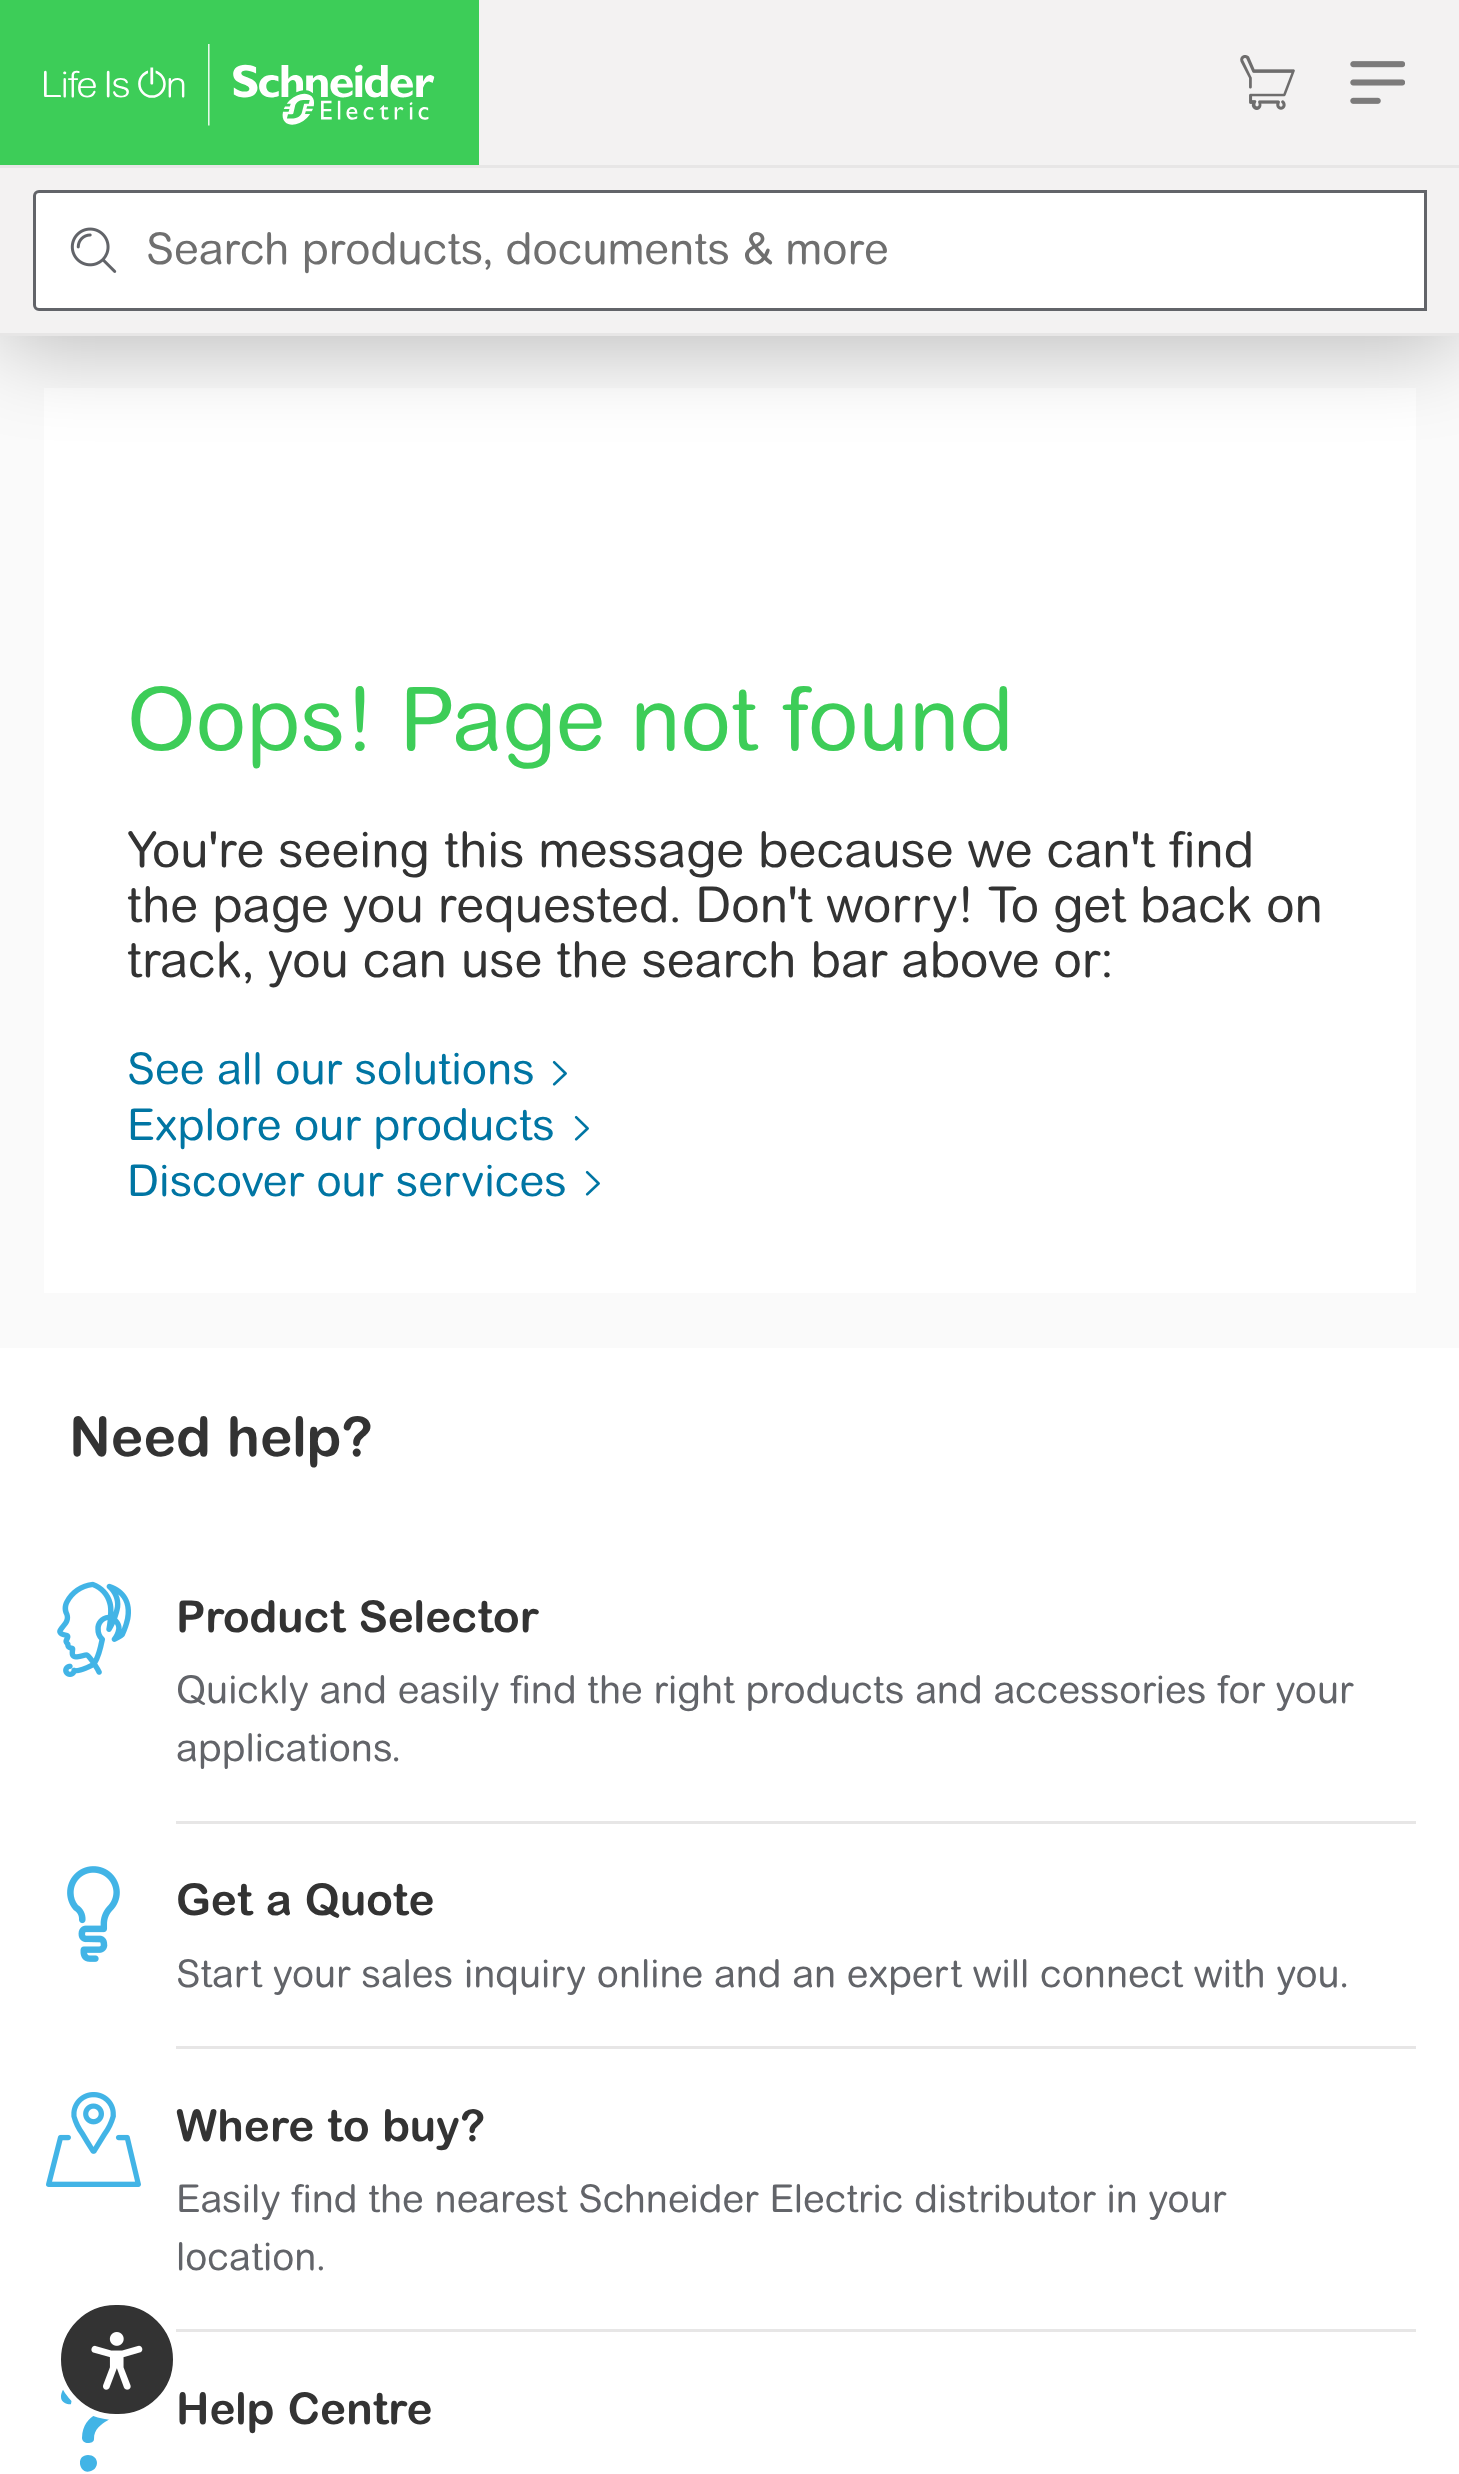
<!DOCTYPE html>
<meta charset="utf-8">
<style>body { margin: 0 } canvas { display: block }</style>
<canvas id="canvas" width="1459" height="2474"></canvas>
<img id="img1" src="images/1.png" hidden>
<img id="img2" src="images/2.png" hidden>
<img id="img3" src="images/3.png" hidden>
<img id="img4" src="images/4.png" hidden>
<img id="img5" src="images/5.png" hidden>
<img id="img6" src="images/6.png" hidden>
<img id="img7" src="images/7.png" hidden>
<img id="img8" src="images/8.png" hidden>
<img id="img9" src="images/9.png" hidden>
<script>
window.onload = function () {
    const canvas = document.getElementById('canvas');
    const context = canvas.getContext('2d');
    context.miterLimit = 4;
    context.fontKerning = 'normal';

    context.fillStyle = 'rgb(250, 250, 250)';
    context.fillRect(0, 0, 1459, 2474);
    context.fillStyle = 'rgb(255, 255, 255)';
    context.fillRect(44, 388, 1372, 905);
    context.fillStyle = 'rgba(0, 0, 0, 0.25)';
    context.filter = 'blur(44px)';
    context.beginPath();
    context.rect(0, 11, 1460, 336);
    context.fill();
    context.filter = 'none';
    context.fillStyle = 'rgb(243, 242, 242)';
    context.fillRect(0, 0, 1459, 333);
    context.fillStyle = 'rgb(231, 230, 230)';
    context.fillRect(0, 333, 1459, 3);
    context.fillStyle = 'rgb(61, 205, 88)';
    context.fillRect(0, 0, 479, 165);
    context.drawImage(document.getElementById('img1'), 44, 44, 391, 82);
    context.drawImage(document.getElementById('img2'), 1240, 55, 55, 55);
    context.drawImage(document.getElementById('img3'), 1350, 61, 55, 43);
    context.fillStyle = 'rgb(231, 230, 230)';
    context.fillRect(0, 165, 1459, 3);
    context.fillStyle = 'rgb(255, 255, 255)';
    context.beginPath();
    context.roundRect(34.5, 191.5, 1391, 118, [4.5, 0, 0, 4.5]);
    context.fill();
    context.strokeStyle = 'rgb(98, 100, 105)';
    context.lineWidth = 3;
    context.stroke();
    context.drawImage(document.getElementById('img4'), 70, 227, 47, 46);
    context.drawImage(document.getElementById('img5'), 552, 1060, 15, 26);
    context.drawImage(document.getElementById('img5'), 574, 1115, 15, 26);
    context.drawImage(document.getElementById('img5'), 585, 1170, 15, 26);
    context.fillRect(0, 1348, 1459, 1126);
    context.drawImage(document.getElementById('img6'), 57, 1581, 74, 96);
    context.fillStyle = 'rgb(231, 230, 230)';
    context.fillRect(176, 1821, 1240, 3);
    context.drawImage(document.getElementById('img7'), 67, 1866, 53, 96);
    context.fillRect(176, 2046, 1240, 3);
    context.drawImage(document.getElementById('img8'), 46, 2092, 95, 95);
    context.fillRect(176, 2329, 1240, 3);
    context.fillStyle = 'rgb(66, 180, 230)';
    context.beginPath();
    context.moveTo(82, 2438);
    context.bezierCurveTo(82, 2441, 85, 2443, 88, 2443);
    context.bezierCurveTo(91, 2443, 94, 2442, 94, 2439);
    context.bezierCurveTo(94, 2419, 122, 2422, 122, 2399);
    context.bezierCurveTo(122, 2384, 111, 2374, 92, 2374);
    context.bezierCurveTo(71, 2374, 61, 2389, 61, 2397);
    context.bezierCurveTo(61, 2404, 71, 2405, 71, 2404);
    context.bezierCurveTo(72, 2394, 81, 2386, 92, 2386);
    context.bezierCurveTo(102, 2386, 108, 2391, 108, 2400);
    context.bezierCurveTo(108, 2415, 83, 2411, 82, 2438);
    context.closePath();
    context.moveTo(88, 2455);
    context.bezierCurveTo(93, 2455, 97, 2458, 97, 2463);
    context.bezierCurveTo(97, 2466, 95, 2469, 93, 2470);
    context.bezierCurveTo(80, 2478, 74, 2455, 88, 2455);
    context.closePath();
    context.fill('evenodd');
    context.fillStyle = 'rgb(51, 51, 51)';
    context.beginPath();
    context.roundRect(58, 2302, 118, 115, 57.5);
    context.fill();
    context.strokeStyle = 'rgb(255, 255, 255)';
    context.lineWidth = 6;
    context.stroke();
    context.drawImage(document.getElementById('img9'), 91, 2332, 52, 58);
    context.font = '44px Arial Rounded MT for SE';
    context.fillStyle = 'rgb(111, 111, 111)';
    context.fillText('Search products, documents & more', 146, 264);
    context.font = '88px Arial Rounded MT for SE';
    context.fillStyle = 'rgb(61, 205, 88)';
    context.fillText('Oops! Page not found', 127, 750);
    context.font = '49.5px Arial Rounded MT for SE';
    context.fillStyle = 'rgb(51, 51, 51)';
    context.fillText('You\'re seeing this message because we can\'t find', 127, 867);
    context.fillText('the page you requested. Don\'t worry! To get back on', 127, 922);
    context.fillText('track, you can use the search bar above or:', 127, 977);
    context.font = '44px Arial Rounded MT for SE';
    context.fillStyle = 'rgb(0, 117, 163)';
    context.fillText('See all our solutions', 127, 1084);
    context.fillText('Explore our products', 127, 1140);
    context.fillText('Discover our services', 127, 1196);
    context.font = 'bold 55px Arial Rounded MT for SE';
    context.fillStyle = 'rgb(51, 51, 51)';
    context.fillText('Need help?', 69, 1456);
    context.font = 'bold 44px Arial Rounded MT for SE';
    context.fillText('Product Selector', 176, 1632);
    context.font = '38.5px Arial Rounded MT for SE';
    context.fillStyle = 'rgb(98, 100, 105)';
    context.fillText('Quickly and easily find the right products and accessories for your', 176, 1703);
    context.fillText('applications.', 176, 1761);
    context.font = 'bold 44px Arial Rounded MT for SE';
    context.fillStyle = 'rgb(51, 51, 51)';
    context.fillText('Get a Quote', 176, 1915);
    context.font = '38.5px Arial Rounded MT for SE';
    context.fillStyle = 'rgb(98, 100, 105)';
    context.fillText('Start your sales inquiry online and an expert will connect with you.', 176, 1987);
    context.font = 'bold 44px Arial Rounded MT for SE';
    context.fillStyle = 'rgb(51, 51, 51)';
    context.fillText('Where to buy?', 176, 2141);
    context.font = '38.5px Arial Rounded MT for SE';
    context.fillStyle = 'rgb(98, 100, 105)';
    context.fillText('Easily find the nearest Schneider Electric distributor in your', 176, 2212);
    context.fillText('location.', 176, 2270);
    context.font = 'bold 44px Arial Rounded MT for SE';
    context.fillStyle = 'rgb(51, 51, 51)';
    context.fillText('Help Centre', 176, 2424);
};
</script>
